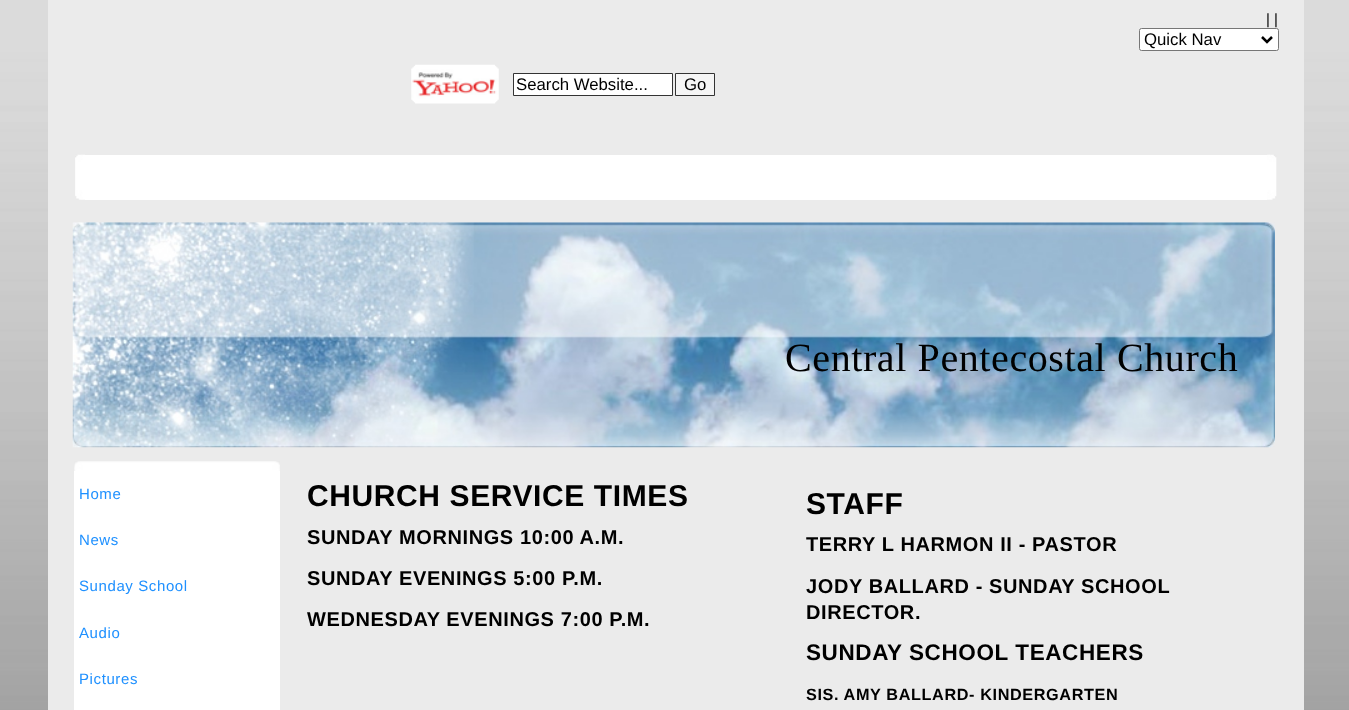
<!DOCTYPE html>
<meta charset="utf-8">
<style>body { margin: 0 } canvas { display: block }</style>
<canvas id="canvas" width="1349" height="710"></canvas>
<img id="img1" src="images/1.png" hidden>
<img id="img2" src="images/2.png" hidden>
<img id="img3" src="images/3.png" hidden>
<img id="img4" src="images/4.png" hidden>
<img id="img5" src="images/5.png" hidden>
<img id="img6" src="images/6.png" hidden>
<script>
window.onload = function () {
    const canvas = document.getElementById('canvas');
    const context = canvas.getContext('2d');
    context.miterLimit = 4;
    context.fontKerning = 'normal';

    context.fillStyle = 'rgb(255, 255, 255)';
    context.fillRect(0, 0, 1349, 710);
    context.drawImage(document.getElementById('img1'), 0, 0, 1349, 710);
    context.fillStyle = 'rgb(235, 235, 235)';
    context.fillRect(48, 0, 1256, 710);
    context.fillStyle = 'rgb(255, 255, 255)';
    context.beginPath();
    context.roundRect(1139.5, 28.5, 139, 22, 2);
    context.fill();
    context.strokeStyle = 'rgb(118, 118, 118)';
    context.stroke();
    context.beginPath();
    context.moveTo(1262, 37);
    context.lineTo(1267, 42);
    context.lineTo(1272, 37);
    context.strokeStyle = 'rgb(0, 0, 0)';
    context.lineWidth = 2.5;
    context.stroke();
    context.drawImage(document.getElementById('img2'), 411, 64, 88, 40);
    context.beginPath();
    context.rect(513.5, 73.5, 159, 22);
    context.fill();
    context.strokeStyle = 'rgb(51, 51, 51)';
    context.lineWidth = 1;
    context.stroke();
    context.fillStyle = 'rgb(245, 245, 245)';
    context.beginPath();
    context.rect(675.5, 73.5, 39, 22);
    context.fill();
    context.stroke();
    context.drawImage(document.getElementById('img3'), 75, 154, 10, 46);
    context.fillStyle = 'rgb(255, 255, 255)';
    context.fillRect(85, 155, 1182, 45);
    context.drawImage(document.getElementById('img4'), 1267, 154, 10, 46);
    context.drawImage(document.getElementById('img5'), 72, 222, 1203, 226);
    context.drawImage(document.getElementById('img6'), 74, 461, 206, 10);
    context.fillRect(74, 471, 206, 239);
    context.font = '15px Liberation Sans';
    context.fillStyle = 'rgb(0, 0, 0)';
    context.fillText('| |', 1266, 24);
    context.font = '16.75px Liberation Sans';
    context.fillText('Quick Nav', 1144, 45);
    context.fillText('Search Website...', 516, 90);
    context.fillText('Go', 684, 90);
    context.letterSpacing = '0.6px';
    context.font = '40px Liberation Serif';
    context.fillText('Central Pentecostal Church', 785, 371);
    context.font = '15px Liberation Sans';
    context.fillStyle = 'rgb(30, 144, 255)';
    context.fillText('Home', 79, 499);
    context.fillText('News', 79, 545);
    context.fillText('Sunday School', 79, 591);
    context.fillText('Audio', 79, 638);
    context.fillText('Pictures', 79, 684);
    context.font = 'bold 30px Liberation Sans';
    context.fillStyle = 'rgb(0, 0, 0)';
    context.fillText('CHURCH SERVICE TIMES', 307, 506);
    context.font = 'bold 20px Liberation Sans';
    context.fillText('SUNDAY MORNINGS 10:00 A.M.', 307, 544);
    context.fillText('SUNDAY EVENINGS 5:00 P.M.', 307, 585);
    context.fillText('WEDNESDAY EVENINGS 7:00 P.M.', 307, 626);
    context.font = 'bold 30px Liberation Sans';
    context.fillText('STAFF', 806, 514);
    context.font = 'bold 20px Liberation Sans';
    context.fillText('TERRY L HARMON II - PASTOR', 806, 551);
    context.fillText('JODY BALLARD - SUNDAY SCHOOL', 806, 593);
    context.fillText('DIRECTOR.', 806, 619);
    context.font = 'bold 22.5px Liberation Sans';
    context.fillText('SUNDAY SCHOOL TEACHERS', 806, 660);
    context.font = 'bold 16.25px Liberation Sans';
    context.fillText('SIS. AMY BALLARD- KINDERGARTEN', 806, 700);
};
</script>
